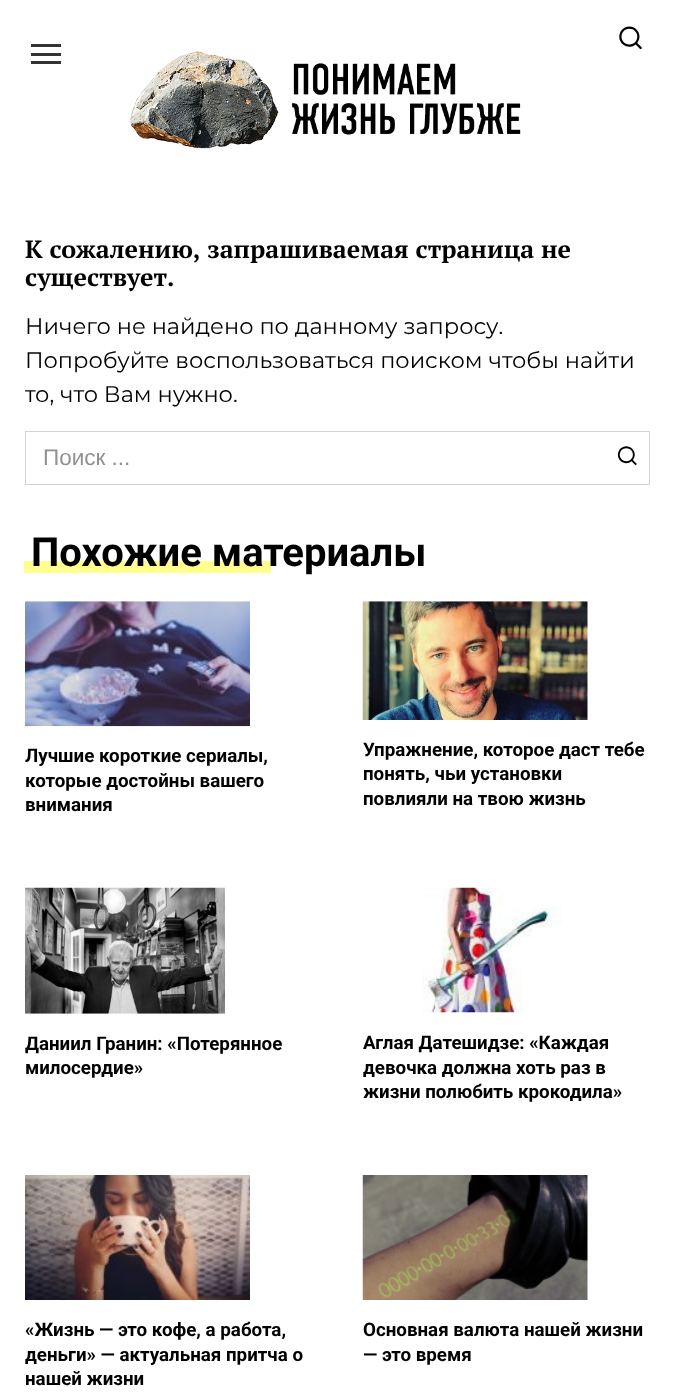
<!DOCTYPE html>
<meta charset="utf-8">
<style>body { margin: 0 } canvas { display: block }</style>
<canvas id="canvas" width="674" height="1396"></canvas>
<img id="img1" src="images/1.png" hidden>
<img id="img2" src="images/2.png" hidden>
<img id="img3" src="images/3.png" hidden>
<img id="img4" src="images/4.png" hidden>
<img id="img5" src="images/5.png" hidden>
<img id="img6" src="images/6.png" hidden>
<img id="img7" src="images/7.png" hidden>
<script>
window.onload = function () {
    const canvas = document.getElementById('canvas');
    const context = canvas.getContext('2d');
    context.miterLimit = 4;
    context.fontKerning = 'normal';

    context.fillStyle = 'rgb(255, 255, 255)';
    context.fillRect(0, 0, 674, 1396);
    context.fillStyle = 'rgb(51, 51, 51)';
    context.fillRect(31, 44, 30, 3);
    context.fillRect(31, 53, 30, 3);
    context.fillRect(31, 61, 30, 3);
    context.drawImage(document.getElementById('img1'), 129, 51, 392, 98);
    context.strokeStyle = 'rgb(206, 212, 218)';
    context.strokeRect(25.5, 431.5, 624, 53);
    context.fillStyle = 'rgb(255, 255, 142)';
    context.fillRect(24, 561, 247, 12);
    context.drawImage(document.getElementById('img2'), 25, 601, 225, 126);
    context.drawImage(document.getElementById('img3'), 362, 601, 226, 119);
    context.drawImage(document.getElementById('img4'), 25, 887, 200, 127);
    context.drawImage(document.getElementById('img5'), 422, 887, 140, 126);
    context.drawImage(document.getElementById('img6'), 25, 1175, 225, 125);
    context.drawImage(document.getElementById('img7'), 362, 1175, 226, 125);
    context.font = '27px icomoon';
    context.fillStyle = 'rgb(0, 0, 0)';
    context.fillText('🔍', 617, 49);
    context.font = 'bold 25px PT Serif';
    context.fillText('К сожалению, запрашиваемая страница не', 25, 258);
    context.fillText('существует.', 25, 286);
    context.font = '22.5px Montserrat';
    context.fillText('Ничего не найдено по данному запросу.', 25, 334);
    context.fillText('Попробуйте воспользоваться поиском чтобы найти', 25, 368);
    context.fillText('то, что Вам нужно.', 25, 402);
    context.font = '22.5px Liberation Sans';
    context.fillStyle = 'rgb(145, 145, 145)';
    context.fillText('Поиск ...', 43, 465);
    context.font = '22.5px icomoon';
    context.fillStyle = 'rgb(0, 0, 0)';
    context.fillText('🔍', 616, 465);
    context.font = 'bold 40px Roboto';
    context.fillText('Похожие материалы', 31, 566);
    context.font = 'bold 18.75px Roboto';
    context.fillText('Лучшие короткие сериалы,', 25, 762);
    context.fillText('которые достойны вашего', 25, 787);
    context.fillText('внимания', 25, 811);
    context.fillText('Упражнение, которое даст тебе', 363, 756);
    context.fillText('понять, чьи установки', 363, 780);
    context.fillText('повлияли на твою жизнь', 363, 805);
    context.fillText('Даниил Гранин: «Потерянное', 25, 1050);
    context.fillText('милосердие»', 25, 1074);
    context.fillText('Аглая Датешидзе: «Каждая', 363, 1049);
    context.fillText('девочка должна хоть раз в', 363, 1074);
    context.fillText('жизни полюбить крокодила»', 363, 1098);
    context.fillText('«Жизнь — это кофе, а работа,', 25, 1336);
    context.fillText('деньги» — актуальная притча о', 25, 1361);
    context.fillText('нашей жизни', 25, 1385);
    context.fillText('Основная валюта нашей жизни', 363, 1336);
    context.fillText('— это время', 363, 1361);
};
</script>
